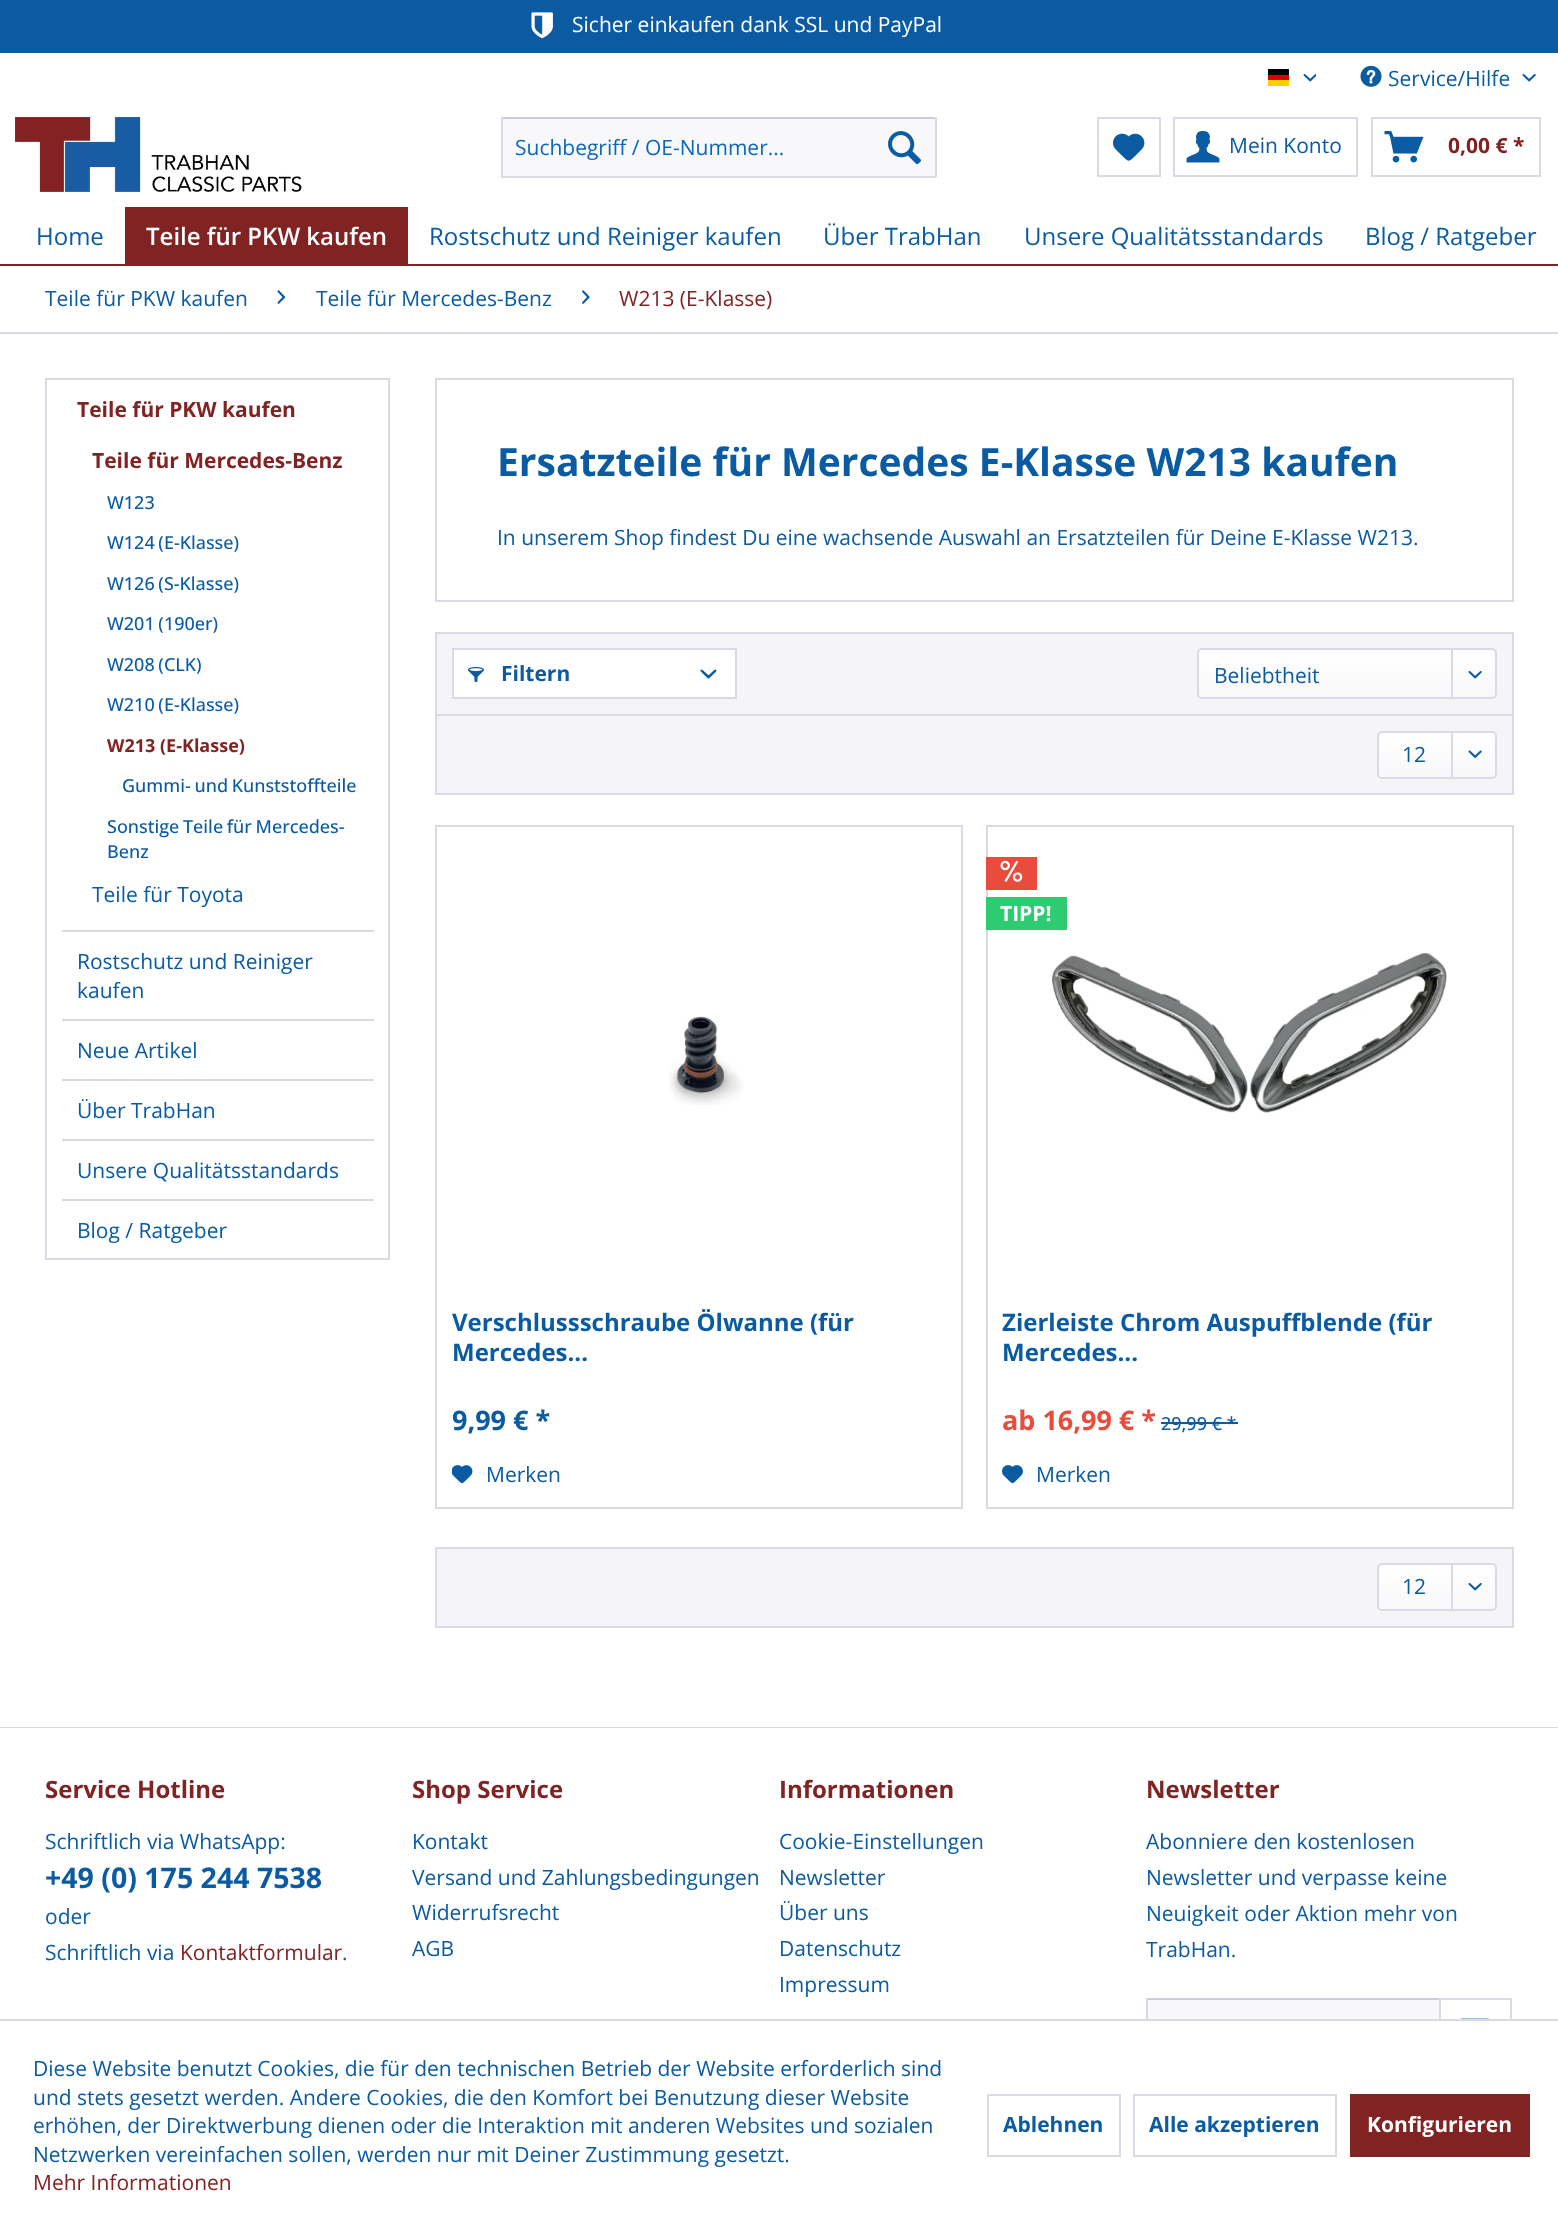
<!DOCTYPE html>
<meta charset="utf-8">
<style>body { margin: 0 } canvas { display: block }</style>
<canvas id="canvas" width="1558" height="2229"></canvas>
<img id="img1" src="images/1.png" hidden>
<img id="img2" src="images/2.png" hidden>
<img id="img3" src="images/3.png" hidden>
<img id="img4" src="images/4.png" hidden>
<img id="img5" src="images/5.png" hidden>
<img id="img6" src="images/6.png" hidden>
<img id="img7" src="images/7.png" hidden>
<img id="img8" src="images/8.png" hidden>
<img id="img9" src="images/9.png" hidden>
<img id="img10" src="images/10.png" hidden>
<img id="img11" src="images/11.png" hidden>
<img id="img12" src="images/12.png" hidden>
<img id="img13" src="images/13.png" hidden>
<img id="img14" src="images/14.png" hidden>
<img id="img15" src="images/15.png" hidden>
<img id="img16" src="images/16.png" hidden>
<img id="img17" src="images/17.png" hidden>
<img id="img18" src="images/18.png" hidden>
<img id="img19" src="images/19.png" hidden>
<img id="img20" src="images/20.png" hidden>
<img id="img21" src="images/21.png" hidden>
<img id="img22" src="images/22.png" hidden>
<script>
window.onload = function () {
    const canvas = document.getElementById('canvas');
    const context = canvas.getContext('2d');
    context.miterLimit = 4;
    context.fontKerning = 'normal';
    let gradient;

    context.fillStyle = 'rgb(255, 255, 255)';
    context.fillRect(0, 0, 1558, 2229);
    context.fillStyle = 'rgb(10, 91, 162)';
    context.fillRect(0, 0, 1558, 53);
    context.drawImage(document.getElementById('img1'), 531, 12, 22, 27);
    context.fillStyle = 'rgb(0, 0, 0)';
    context.fillRect(1268, 69, 21, 6);
    context.fillStyle = 'rgb(221, 0, 0)';
    context.fillRect(1268, 75, 21, 5);
    context.fillStyle = 'rgb(255, 206, 0)';
    context.fillRect(1268, 80, 21, 6);
    context.drawImage(document.getElementById('img2'), 1303, 74, 13, 8);
    context.drawImage(document.getElementById('img3'), 1360, 65, 22, 22);
    context.drawImage(document.getElementById('img4'), 1522, 74, 14, 8);
    context.drawImage(document.getElementById('img5'), 15, 117, 287, 75);
    context.fillStyle = 'rgb(248, 248, 250)';
    context.fillRect(503, 119, 432, 57);
    context.fillStyle = 'rgb(203, 203, 219)';
    context.fillRect(501, 117, 435, 2);
    context.fillStyle = 'rgb(218, 218, 229)';
    context.fillRect(935, 117, 2, 60);
    context.fillRect(501, 176, 435, 2);
    context.fillRect(501, 117, 2, 60);
    context.drawImage(document.getElementById('img6'), 888, 131, 33, 33);
    context.strokeStyle = 'rgb(218, 218, 229)';
    context.lineWidth = 2;
    context.strokeRect(1098, 118, 62, 58);
    context.drawImage(document.getElementById('img7'), 1113, 133, 32, 28);
    context.strokeRect(1174, 118, 183, 58);
    context.drawImage(document.getElementById('img8'), 1186, 131, 34, 32);
    context.strokeRect(1372, 118, 168, 58);
    context.drawImage(document.getElementById('img9'), 1384, 131, 40, 32);
    context.fillStyle = 'rgb(130, 35, 35)';
    context.fillRect(0, 264, 1558, 2);
    context.fillRect(125, 207, 283, 57);
    context.fillStyle = 'rgb(218, 218, 229)';
    context.fillRect(0, 332, 1558, 2);
    context.drawImage(document.getElementById('img10'), 277, 290, 9, 14);
    context.drawImage(document.getElementById('img11'), 582, 290, 8, 14);
    context.strokeRect(46, 379, 343, 880);
    context.fillRect(62, 930, 312, 2);
    context.fillRect(62, 1019, 312, 2);
    context.fillRect(62, 1079, 312, 2);
    context.fillRect(62, 1139, 312, 2);
    context.fillRect(62, 1199, 312, 2);
    context.strokeRect(436, 379, 1077, 222);
    context.fillStyle = 'rgb(245, 245, 248)';
    context.beginPath();
    context.rect(436, 633, 1077, 161);
    context.fill();
    context.stroke();
    context.fillStyle = 'rgb(255, 255, 255)';
    context.beginPath();
    context.rect(453, 649, 283, 49);
    context.fill();
    context.stroke();
    context.drawImage(document.getElementById('img12'), 468, 666, 16, 16);
    context.drawImage(document.getElementById('img13'), 700, 669, 17, 10);
    gradient = context.createLinearGradient(1347, 650, 1347, 698);
    gradient.addColorStop(0, 'rgb(255, 255, 255)');
    gradient.addColorStop(1, 'rgb(248, 248, 250)');
    context.fillStyle = gradient;
    context.beginPath();
    context.roundRect(1199, 650, 297, 48, 3);
    context.fill();
    context.beginPath();
    context.roundRect(1198, 649, 298, 49, 4);
    context.stroke();
    context.fillStyle = 'rgb(218, 218, 229)';
    context.fillRect(1451, 650, 2, 49);
    context.drawImage(document.getElementById('img14'), 1468, 671, 14, 8);
    context.fillRect(437, 714, 1075, 2);
    gradient = context.createLinearGradient(1437, 732, 1437, 777);
    gradient.addColorStop(0, 'rgb(255, 255, 255)');
    gradient.addColorStop(1, 'rgb(248, 248, 250)');
    context.fillStyle = gradient;
    context.beginPath();
    context.roundRect(1379, 732, 117, 45, 3);
    context.fill();
    context.beginPath();
    context.roundRect(1378, 732, 118, 46, 4);
    context.stroke();
    context.fillStyle = 'rgb(218, 218, 229)';
    context.fillRect(1451, 732, 2, 47);
    context.drawImage(document.getElementById('img15'), 1468, 750, 14, 8);
    context.strokeRect(436, 826, 526, 682);
    context.drawImage(document.getElementById('img16'), 669, 1016, 75, 89);
    context.drawImage(document.getElementById('img17'), 452, 1465, 21, 19);
    context.strokeRect(987, 826, 526, 682);
    context.fillStyle = 'rgb(231, 76, 60)';
    context.fillRect(986, 857, 51, 33);
    context.drawImage(document.getElementById('img18'), 1000, 860, 23, 22);
    context.fillStyle = 'rgb(46, 204, 113)';
    context.fillRect(986, 897, 81, 33);
    context.drawImage(document.getElementById('img19'), 1052, 952, 395, 161);
    context.fillStyle = 'rgb(10, 91, 162)';
    context.fillRect(1161, 1422, 77, 2);
    context.drawImage(document.getElementById('img20'), 1002, 1465, 21, 19);
    context.fillStyle = 'rgb(245, 245, 248)';
    context.beginPath();
    context.rect(436, 1548, 1077, 79);
    context.fill();
    context.stroke();
    gradient = context.createLinearGradient(1437, 1565, 1437, 1610);
    gradient.addColorStop(0, 'rgb(255, 255, 255)');
    gradient.addColorStop(1, 'rgb(248, 248, 250)');
    context.fillStyle = gradient;
    context.beginPath();
    context.roundRect(1379, 1565, 117, 45, 3);
    context.fill();
    context.beginPath();
    context.roundRect(1378, 1564, 118, 46, 4);
    context.stroke();
    context.fillStyle = 'rgb(218, 218, 229)';
    context.fillRect(1451, 1565, 2, 46);
    context.drawImage(document.getElementById('img21'), 1468, 1583, 14, 8);
    context.fillRect(0, 1727, 1558, 1);
    context.fillStyle = 'rgb(248, 248, 250)';
    context.fillRect(1148, 2000, 291, 19);
    context.fillStyle = 'rgb(203, 203, 219)';
    context.fillRect(1146, 1998, 294, 2);
    context.fillStyle = 'rgb(218, 218, 229)';
    context.fillRect(1146, 1998, 2, 21);
    context.strokeRect(1440, 1999, 71, 58);
    context.drawImage(document.getElementById('img22'), 1461, 2018, 28, 1);
    context.fillStyle = 'rgb(255, 255, 255)';
    context.fillRect(1439, 2021, 73, 37);
    context.fillStyle = 'rgb(218, 218, 229)';
    context.fillRect(0, 2019, 1558, 2);
    context.strokeRect(988, 2095, 132, 61);
    context.strokeRect(1134, 2095, 202, 61);
    context.fillStyle = 'rgb(130, 35, 35)';
    context.fillRect(1350, 2094, 180, 63);
    context.font = '21px Open Sans';
    context.fillStyle = 'rgb(255, 255, 255)';
    context.fillText('Sicher einkaufen dank SSL und PayPal', 572, 32);
    context.fillStyle = 'rgb(10, 91, 162)';
    context.fillText('Service/Hilfe', 1388, 86);
    context.fillStyle = 'rgb(11, 104, 186)';
    context.fillText('Suchbegriff / OE-Nummer...', 515, 155);
    context.fillStyle = 'rgb(10, 91, 162)';
    context.fillText('Mein Konto', 1229, 153);
    context.font = 'bold 21px Open Sans';
    context.fillStyle = 'rgb(130, 35, 35)';
    context.fillText('0,00 € *', 1448, 153);
    context.font = '24px Open Sans';
    context.fillStyle = 'rgb(10, 91, 162)';
    context.fillText('Home', 36, 245);
    context.font = '600 24px Open Sans';
    context.fillStyle = 'rgb(255, 255, 255)';
    context.fillText('Teile für PKW kaufen', 146, 245);
    context.font = '24px Open Sans';
    context.fillStyle = 'rgb(10, 91, 162)';
    context.fillText('Rostschutz und Reiniger kaufen', 429, 245);
    context.fillText('Über TrabHan', 823, 245);
    context.fillText('Unsere Qualitätsstandards', 1024, 245);
    context.fillText('Blog / Ratgeber', 1365, 245);
    context.font = '21px Open Sans';
    context.fillText('Teile für PKW kaufen', 45, 306);
    context.fillText('Teile für Mercedes-Benz', 316, 306);
    context.fillStyle = 'rgb(130, 35, 35)';
    context.fillText('W213 (E-Klasse)', 619, 306);
    context.font = 'bold 21px Open Sans';
    context.fillText('Teile für PKW kaufen', 77, 417);
    context.fillText('Teile für Mercedes-Benz', 92, 468);
    context.font = '500 18px Open Sans';
    context.fillStyle = 'rgb(10, 91, 162)';
    context.fillText('W123', 107, 509);
    context.wordSpacing = '-1px';
    context.fillText('W124 (E-Klasse)', 107, 549);
    context.fillText('W126 (S-Klasse)', 107, 590);
    context.fillText('W201 (190er)', 107, 630);
    context.fillText('W208 (CLK)', 107, 671);
    context.fillText('W210 (E-Klasse)', 107, 711);
    context.wordSpacing = '0px';
    context.font = 'bold 18px Open Sans';
    context.fillStyle = 'rgb(130, 35, 35)';
    context.fillText('W213 (E-Klasse)', 107, 752);
    context.wordSpacing = '-1px';
    context.font = '500 18px Open Sans';
    context.fillStyle = 'rgb(10, 91, 162)';
    context.fillText('Gummi- und Kunststoffteile', 122, 792);
    context.fillText('Sonstige Teile für Mercedes-', 107, 833);
    context.wordSpacing = '0px';
    context.fillText('Benz', 107, 858);
    context.font = '21px Open Sans';
    context.fillText('Teile für Toyota', 92, 902);
    context.fillText('Rostschutz und Reiniger', 77, 969);
    context.fillText('kaufen', 77, 998);
    context.fillText('Neue Artikel', 77, 1058);
    context.fillText('Über TrabHan', 77, 1118);
    context.fillText('Unsere Qualitätsstandards', 77, 1178);
    context.fillText('Blog / Ratgeber', 77, 1238);
    context.font = 'bold 39px Open Sans';
    context.fillText('Ersatzteile für Mercedes E-Klasse W213 kaufen', 497, 476);
    context.font = '21px Open Sans';
    context.fillText('In unserem Shop findest Du eine wachsende Auswahl an Ersatzteilen für Deine E-Klasse W213.', 497, 545);
    context.font = 'bold 21px Open Sans';
    context.fillText('Filtern', 501, 681);
    context.font = '21px Open Sans';
    context.fillText('Beliebtheit', 1214, 683);
    context.fillText('12', 1402, 762);
    context.font = 'bold 24px Open Sans';
    context.fillText('Verschlussschraube Ölwanne (für', 452, 1331);
    context.fillText('Mercedes...', 452, 1361);
    context.font = 'bold 27px Open Sans';
    context.fillText('9,99 € *', 452, 1430);
    context.font = '21px Open Sans';
    context.fillText('Merken', 486, 1482);
    context.font = 'bold 21px Open Sans';
    context.fillStyle = 'rgb(255, 255, 255)';
    context.fillText('TIPP!', 1000, 921);
    context.font = 'bold 24px Open Sans';
    context.fillStyle = 'rgb(10, 91, 162)';
    context.fillText('Zierleiste Chrom Auspuffblende (für', 1002, 1331);
    context.fillText('Mercedes...', 1002, 1361);
    context.font = 'bold 27px Open Sans';
    context.fillStyle = 'rgb(231, 76, 60)';
    context.fillText('ab 16,99 € *', 1002, 1430);
    context.font = '500 18px Open Sans';
    context.fillStyle = 'rgb(10, 91, 162)';
    context.fillText('29,99 € *', 1161, 1430);
    context.font = '21px Open Sans';
    context.fillText('Merken', 1036, 1482);
    context.fillText('12', 1402, 1594);
    context.font = 'bold 24px Open Sans';
    context.fillStyle = 'rgb(130, 35, 35)';
    context.fillText('Service Hotline', 45, 1798);
    context.font = '21px Open Sans';
    context.fillStyle = 'rgb(10, 91, 162)';
    context.fillText('Schriftlich via WhatsApp:', 45, 1849);
    context.font = 'bold 28.5px Open Sans';
    context.fillText('+49 (0) 175 244 7538', 45, 1888);
    context.font = '21px Open Sans';
    context.fillText('oder', 45, 1924);
    context.fillText('Schriftlich via', 45, 1960);
    context.fillStyle = 'rgb(130, 35, 35)';
    context.fillText('Kontaktformular', 180, 1960);
    context.fillStyle = 'rgb(10, 91, 162)';
    context.fillText('.', 342, 1960);
    context.font = 'bold 24px Open Sans';
    context.fillStyle = 'rgb(130, 35, 35)';
    context.fillText('Shop Service', 412, 1798);
    context.font = '21px Open Sans';
    context.fillStyle = 'rgb(10, 91, 162)';
    context.fillText('Kontakt', 412, 1849);
    context.fillText('Versand und Zahlungsbedingungen', 412, 1885);
    context.fillText('Widerrufsrecht', 412, 1920);
    context.fillText('AGB', 412, 1956);
    context.font = 'bold 24px Open Sans';
    context.fillStyle = 'rgb(130, 35, 35)';
    context.fillText('Informationen', 779, 1798);
    context.font = '21px Open Sans';
    context.fillStyle = 'rgb(10, 91, 162)';
    context.fillText('Cookie-Einstellungen', 779, 1849);
    context.fillText('Newsletter', 779, 1885);
    context.fillText('Über uns', 779, 1920);
    context.fillText('Datenschutz', 779, 1956);
    context.fillText('Impressum', 779, 1992);
    context.font = 'bold 24px Open Sans';
    context.fillStyle = 'rgb(130, 35, 35)';
    context.fillText('Newsletter', 1146, 1798);
    context.font = '21px Open Sans';
    context.fillStyle = 'rgb(10, 91, 162)';
    context.fillText('Abonniere den kostenlosen', 1146, 1849);
    context.fillText('Newsletter und verpasse keine', 1146, 1885);
    context.fillText('Neuigkeit oder Aktion mehr von', 1146, 1921);
    context.fillText('TrabHan.', 1146, 1957);
    context.fillText('Diese Website benutzt Cookies, die für den technischen Betrieb der Website erforderlich sind', 33, 2076);
    context.fillText('und stets gesetzt werden. Andere Cookies, die den Komfort bei Benutzung dieser Website', 33, 2105);
    context.fillText('erhöhen, der Direktwerbung dienen oder die Interaktion mit anderen Websites und sozialen', 33, 2133);
    context.fillText('Netzwerken vereinfachen sollen, werden nur mit Deiner Zustimmung gesetzt.', 33, 2162);
    context.fillStyle = 'rgb(130, 35, 35)';
    context.fillText('Mehr Informationen', 33, 2190);
    context.font = 'bold 21px Open Sans';
    context.fillStyle = 'rgb(10, 91, 162)';
    context.fillText('Ablehnen', 1003, 2132);
    context.fillText('Alle akzeptieren', 1149, 2132);
    context.fillStyle = 'rgb(255, 255, 255)';
    context.fillText('Konfigurieren', 1367, 2132);
};
</script>
